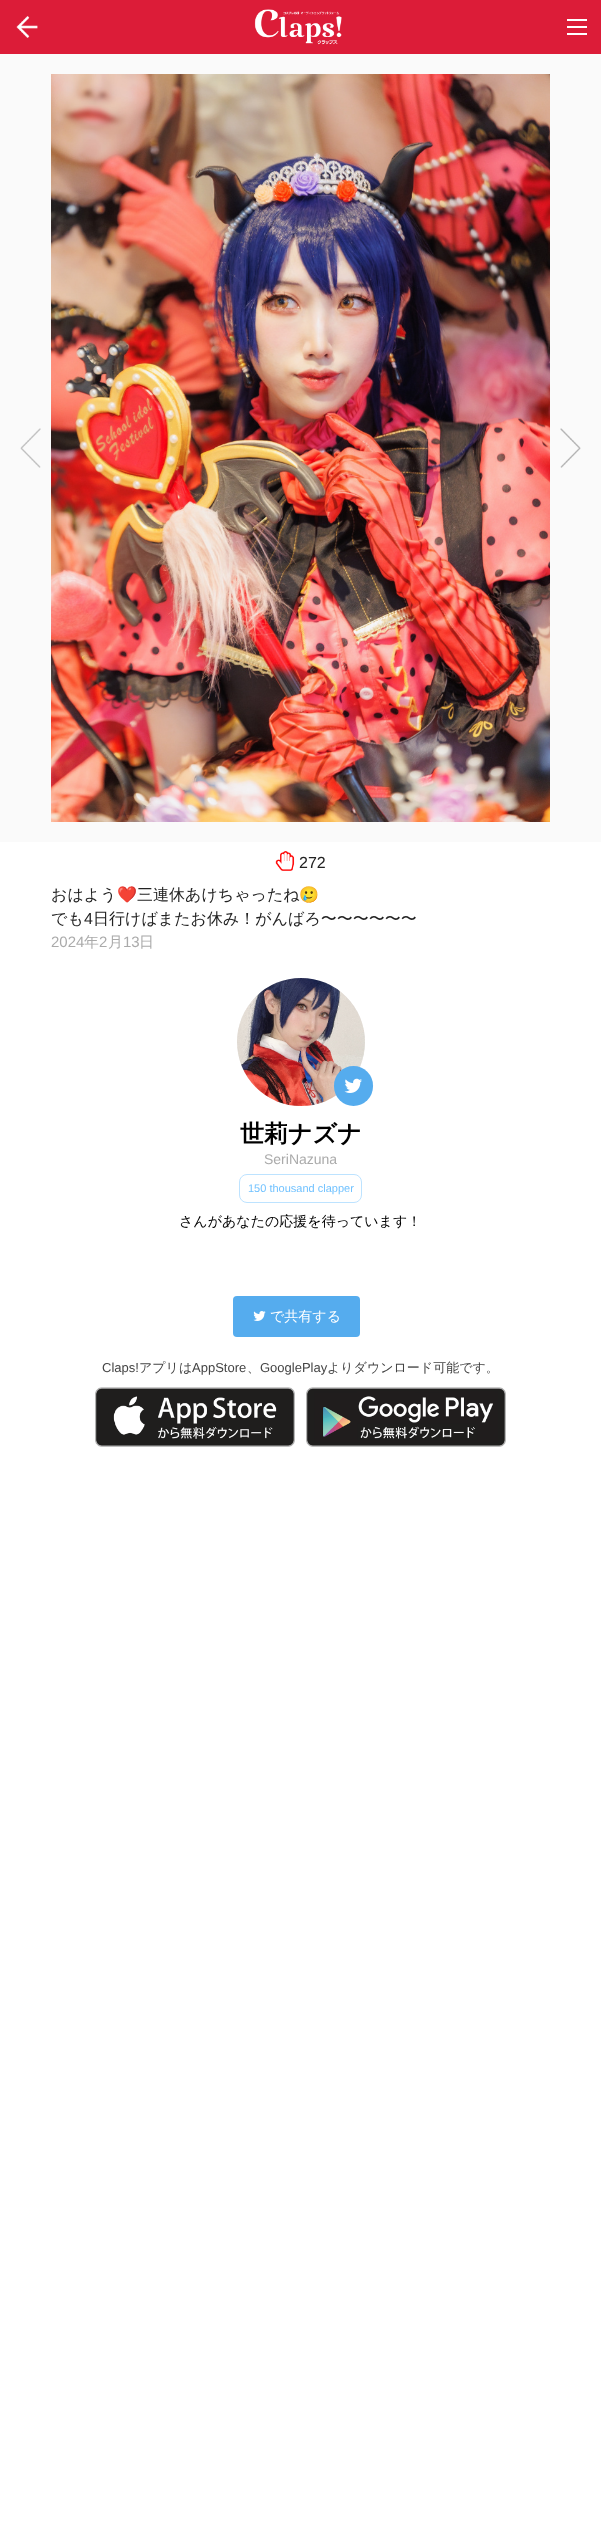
<!DOCTYPE html>
<meta charset="utf-8">
<style>body { margin: 0 } canvas { display: block }</style>
<canvas id="canvas" width="601" height="2527"></canvas>
<img id="img1" src="images/1.png" hidden>
<img id="img2" src="images/2.png" hidden>
<img id="img3" src="images/3.png" hidden>
<img id="img4" src="images/4.png" hidden>
<img id="img5" src="images/5.png" hidden>
<img id="img6" src="images/6.png" hidden>
<img id="img7" src="images/7.png" hidden>
<img id="img8" src="images/8.png" hidden>
<img id="img9" src="images/9.png" hidden>
<img id="img10" src="images/10.png" hidden>
<img id="img11" src="images/11.png" hidden>
<script>
window.onload = function () {
    const canvas = document.getElementById('canvas');
    const context = canvas.getContext('2d');
    context.miterLimit = 4;
    context.fontKerning = 'normal';

    context.fillStyle = 'rgb(255, 255, 255)';
    context.fillRect(0, 0, 601, 2527);
    context.fillStyle = 'rgb(220, 28, 56)';
    context.fillRect(0, 0, 601, 54);
    context.drawImage(document.getElementById('img1'), 16, 16, 22, 22);
    context.drawImage(document.getElementById('img2'), 254, 9, 88, 36);
    context.fillStyle = 'rgb(255, 255, 255)';
    context.fillRect(567, 26, 20, 2);
    context.fillRect(567, 19, 20, 2);
    context.fillRect(567, 33, 20, 2);
    context.fillStyle = 'rgb(250, 250, 250)';
    context.fillRect(0, 54, 601, 788);
    context.drawImage(document.getElementById('img3'), 20, 428, 21, 40);
    context.drawImage(document.getElementById('img4'), 51, 74, 499, 748);
    context.drawImage(document.getElementById('img5'), 560, 428, 21, 40);
    context.drawImage(document.getElementById('img6'), 275, 851, 20, 20);
    context.beginPath();
    context.arc(301, 1042, 63.5, 0, 2 * Math.PI);
    context.strokeStyle = 'rgb(242, 242, 242)';
    context.stroke();
    context.drawImage(document.getElementById('img7'), 237, 978, 128, 128);
    context.fillStyle = 'rgb(85, 172, 238)';
    context.beginPath();
    context.roundRect(334, 1066, 39, 40, 19.5);
    context.fill();
    context.drawImage(document.getElementById('img8'), 344, 1078, 18, 15);
    context.beginPath();
    context.roundRect(239.5, 1174.5, 122, 28, 7.5);
    context.strokeStyle = 'rgb(189, 227, 255)';
    context.stroke();
    context.beginPath();
    context.roundRect(233, 1296, 127, 41, 4);
    context.fill();
    context.drawImage(document.getElementById('img9'), 253, 1311, 13, 10);
    context.drawImage(document.getElementById('img10'), 95, 1387, 200, 60);
    context.drawImage(document.getElementById('img11'), 306, 1387, 200, 60);
    context.font = '16px Liberation Sans';
    context.fillStyle = 'rgb(34, 34, 34)';
    context.fillText('272', 299, 868);
    context.font = '500 16px WenQuanYi Zen Hei';
    context.fillText('おはよう', 51, 900);
    context.font = '16px Noto Color Emoji';
    context.fillText('❤️', 117, 900);
    context.font = '500 16px WenQuanYi Zen Hei';
    context.fillText('三連休あけちゃったね', 137, 900);
    context.font = '16px Noto Color Emoji';
    context.fillText('🥲', 299, 900);
    context.font = '500 16px WenQuanYi Zen Hei';
    context.fillText('でも', 51, 924);
    context.font = '16px Liberation Sans';
    context.fillText('4', 84, 924);
    context.font = '500 16px WenQuanYi Zen Hei';
    context.fillText('日行けばまたお休み！がんばろ〜〜〜〜〜〜', 93, 924);
    context.font = '15px Liberation Sans';
    context.fillStyle = 'rgb(170, 170, 170)';
    context.fillText('2024', 51, 947);
    context.font = '500 15px WenQuanYi Zen Hei';
    context.fillText('年', 84, 947);
    context.font = '15px Liberation Sans';
    context.fillText('2', 99, 947);
    context.font = '500 15px WenQuanYi Zen Hei';
    context.fillText('月', 108, 947);
    context.font = '15px Liberation Sans';
    context.fillText('13', 123, 947);
    context.font = '500 15px WenQuanYi Zen Hei';
    context.fillText('日', 139, 947);
    context.font = 'bold 24px WenQuanYi Zen Hei';
    context.fillStyle = 'rgb(0, 0, 0)';
    context.fillText('世莉ナズナ', 240, 1142);
    context.font = '14px Liberation Sans';
    context.fillStyle = 'rgb(170, 170, 170)';
    context.fillText('SeriNazuna', 264, 1164);
    context.font = '11px Liberation Sans';
    context.fillStyle = 'rgb(113, 194, 255)';
    context.fillText('150 thousand clapper', 248, 1192);
    context.font = '500 14px WenQuanYi Zen Hei';
    context.fillStyle = 'rgb(0, 0, 0)';
    context.fillText('さんがあなたの応援を待っています！', 179, 1226);
    context.fillStyle = 'rgb(255, 255, 255)';
    context.fillText('で共有する', 270, 1321);
    context.font = '13px Liberation Sans';
    context.fillStyle = 'rgb(68, 68, 68)';
    context.fillText('Claps!', 102, 1372);
    context.font = '500 13px WenQuanYi Zen Hei';
    context.fillText('アプリは', 139, 1372);
    context.font = '13px Liberation Sans';
    context.fillText('AppStore', 192, 1372);
    context.font = '500 13px WenQuanYi Zen Hei';
    context.fillText('、', 247, 1372);
    context.font = '13px Liberation Sans';
    context.fillText('GooglePlay', 260, 1372);
    context.font = '500 13px WenQuanYi Zen Hei';
    context.fillText('よりダウンロード可能です。', 327, 1372);
};
</script>
